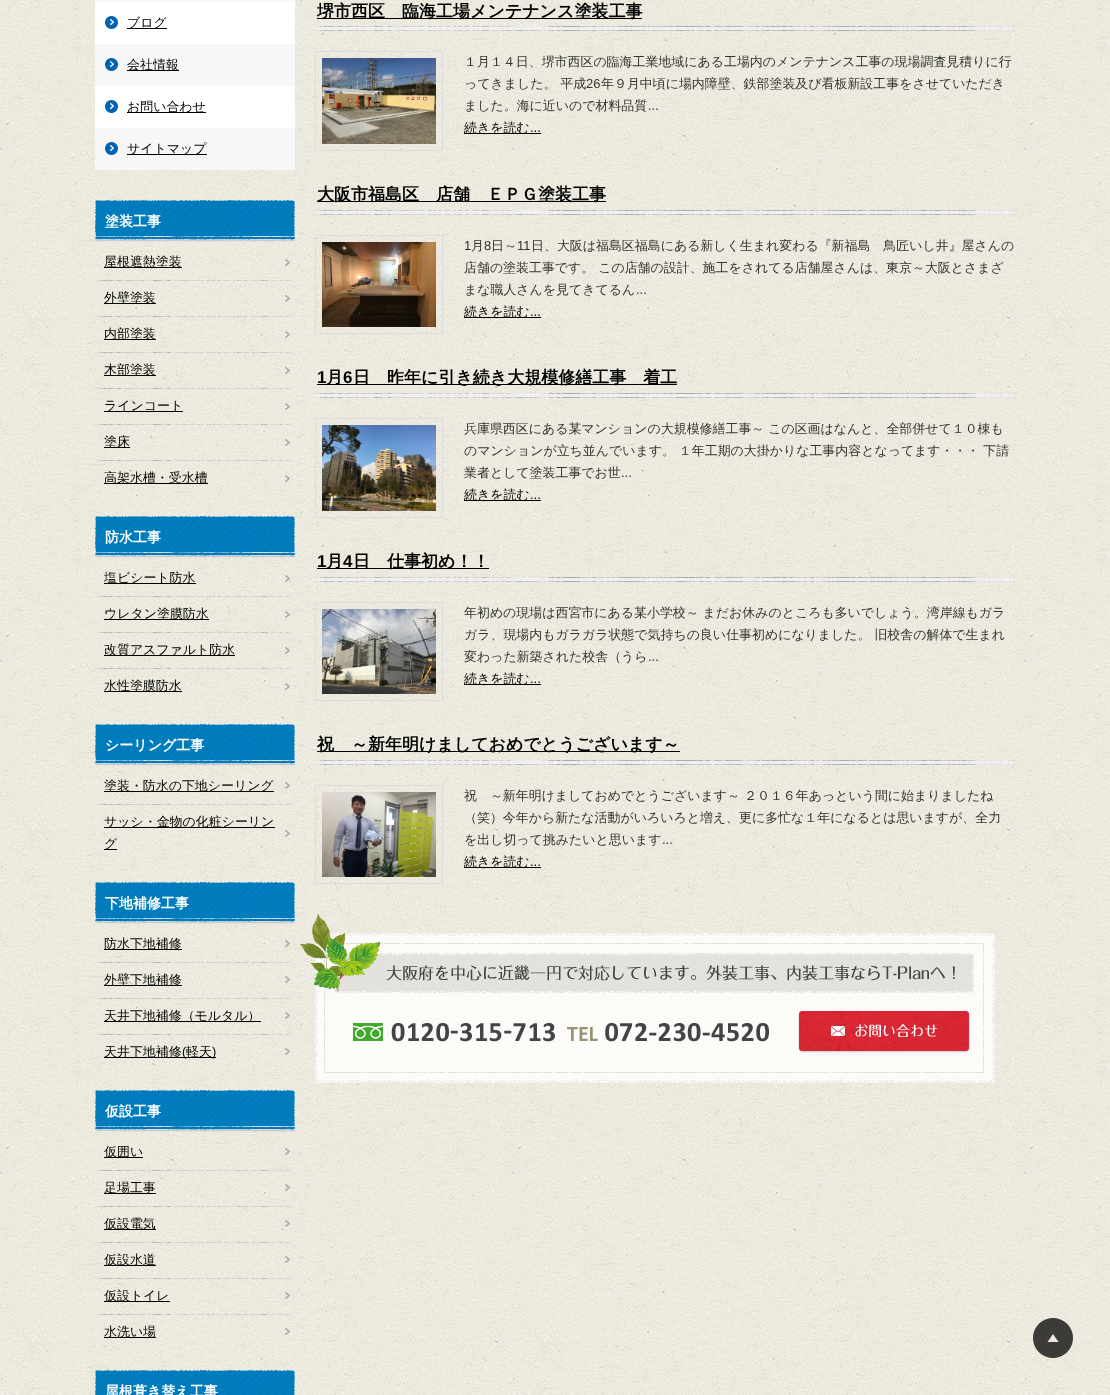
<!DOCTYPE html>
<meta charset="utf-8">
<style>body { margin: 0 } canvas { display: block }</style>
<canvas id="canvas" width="1110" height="1395"></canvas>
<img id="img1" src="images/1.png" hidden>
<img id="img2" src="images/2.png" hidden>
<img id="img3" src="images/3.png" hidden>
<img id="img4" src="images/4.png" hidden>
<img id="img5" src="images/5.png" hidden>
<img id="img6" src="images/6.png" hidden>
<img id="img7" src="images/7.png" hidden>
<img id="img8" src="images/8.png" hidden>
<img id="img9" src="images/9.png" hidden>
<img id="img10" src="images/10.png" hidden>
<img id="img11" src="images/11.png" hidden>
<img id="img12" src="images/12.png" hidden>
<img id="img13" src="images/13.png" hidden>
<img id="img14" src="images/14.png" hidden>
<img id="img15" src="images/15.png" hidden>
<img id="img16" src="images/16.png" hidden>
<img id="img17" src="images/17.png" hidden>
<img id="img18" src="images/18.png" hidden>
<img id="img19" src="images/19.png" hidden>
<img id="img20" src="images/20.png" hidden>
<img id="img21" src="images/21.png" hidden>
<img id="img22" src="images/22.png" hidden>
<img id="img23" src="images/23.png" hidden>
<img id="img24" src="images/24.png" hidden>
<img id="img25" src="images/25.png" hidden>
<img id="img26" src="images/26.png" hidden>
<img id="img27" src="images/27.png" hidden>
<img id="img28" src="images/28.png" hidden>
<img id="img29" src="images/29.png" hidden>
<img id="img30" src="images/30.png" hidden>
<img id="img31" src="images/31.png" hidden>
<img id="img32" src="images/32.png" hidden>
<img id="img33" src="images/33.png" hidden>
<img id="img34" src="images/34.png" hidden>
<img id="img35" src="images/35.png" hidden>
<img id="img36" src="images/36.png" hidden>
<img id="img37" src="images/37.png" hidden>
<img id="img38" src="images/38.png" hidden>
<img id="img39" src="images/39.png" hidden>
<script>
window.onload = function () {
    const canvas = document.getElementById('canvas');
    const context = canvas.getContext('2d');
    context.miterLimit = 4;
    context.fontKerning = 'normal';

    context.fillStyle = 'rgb(255, 255, 255)';
    context.fillRect(0, 0, 1110, 1395);
    context.drawImage(document.getElementById('img1'), 0, 0, 1110, 1395);
    context.fillStyle = 'rgb(247, 247, 247)';
    context.fillRect(95, 0, 200, 2);
    context.fillStyle = 'rgb(255, 255, 255)';
    context.fillRect(95, 2, 200, 42);
    context.drawImage(document.getElementById('img2'), 105, 16, 13, 13);
    context.fillStyle = 'rgb(0, 0, 0)';
    context.fillRect(127, 28, 40, 1);
    context.fillStyle = 'rgb(247, 247, 247)';
    context.fillRect(95, 44, 200, 42);
    context.drawImage(document.getElementById('img3'), 105, 58, 13, 13);
    context.fillStyle = 'rgb(0, 0, 0)';
    context.fillRect(127, 70, 52, 1);
    context.fillStyle = 'rgb(255, 255, 255)';
    context.fillRect(95, 86, 200, 42);
    context.drawImage(document.getElementById('img2'), 105, 100, 13, 13);
    context.fillStyle = 'rgb(0, 0, 0)';
    context.fillRect(127, 112, 79, 1);
    context.fillStyle = 'rgb(247, 247, 247)';
    context.fillRect(95, 128, 200, 42);
    context.drawImage(document.getElementById('img3'), 105, 142, 13, 13);
    context.fillStyle = 'rgb(0, 0, 0)';
    context.fillRect(127, 154, 80, 1);
    context.drawImage(document.getElementById('img4'), 95, 200, 200, 42);
    context.drawImage(document.getElementById('img5'), 285, 259, 5, 7);
    context.fillRect(104, 267, 78, 1);
    context.drawImage(document.getElementById('img6'), 95, 280, 200, 1);
    context.drawImage(document.getElementById('img7'), 285, 295, 5, 7);
    context.fillRect(104, 303, 52, 1);
    context.drawImage(document.getElementById('img6'), 95, 316, 200, 1);
    context.drawImage(document.getElementById('img8'), 285, 331, 5, 7);
    context.fillRect(104, 339, 52, 1);
    context.drawImage(document.getElementById('img6'), 95, 352, 200, 1);
    context.drawImage(document.getElementById('img9'), 285, 367, 5, 7);
    context.fillRect(104, 375, 52, 1);
    context.drawImage(document.getElementById('img6'), 95, 388, 200, 1);
    context.drawImage(document.getElementById('img10'), 285, 403, 5, 7);
    context.fillRect(104, 411, 79, 1);
    context.drawImage(document.getElementById('img6'), 95, 424, 200, 1);
    context.drawImage(document.getElementById('img11'), 285, 439, 5, 7);
    context.fillRect(104, 447, 26, 1);
    context.drawImage(document.getElementById('img6'), 95, 460, 200, 1);
    context.drawImage(document.getElementById('img12'), 285, 475, 5, 7);
    context.fillRect(104, 483, 104, 1);
    context.drawImage(document.getElementById('img4'), 95, 516, 200, 42);
    context.drawImage(document.getElementById('img13'), 285, 575, 5, 7);
    context.fillRect(104, 583, 92, 1);
    context.drawImage(document.getElementById('img6'), 95, 596, 200, 1);
    context.drawImage(document.getElementById('img14'), 285, 611, 5, 7);
    context.fillRect(104, 619, 105, 1);
    context.drawImage(document.getElementById('img6'), 95, 632, 200, 1);
    context.drawImage(document.getElementById('img15'), 285, 647, 5, 7);
    context.fillRect(104, 655, 131, 1);
    context.drawImage(document.getElementById('img6'), 95, 668, 200, 1);
    context.drawImage(document.getElementById('img16'), 285, 683, 5, 7);
    context.fillRect(104, 691, 78, 1);
    context.drawImage(document.getElementById('img4'), 95, 724, 200, 42);
    context.drawImage(document.getElementById('img17'), 285, 782, 5, 7);
    context.fillRect(104, 791, 170, 1);
    context.drawImage(document.getElementById('img6'), 95, 804, 200, 1);
    context.drawImage(document.getElementById('img18'), 285, 830, 5, 7);
    context.fillRect(104, 827, 171, 1);
    context.fillRect(104, 849, 13, 1);
    context.drawImage(document.getElementById('img4'), 95, 882, 200, 42);
    context.drawImage(document.getElementById('img19'), 285, 940, 5, 7);
    context.fillRect(104, 949, 78, 1);
    context.drawImage(document.getElementById('img6'), 95, 962, 200, 1);
    context.drawImage(document.getElementById('img20'), 285, 976, 5, 7);
    context.fillRect(104, 985, 78, 1);
    context.drawImage(document.getElementById('img6'), 95, 998, 200, 1);
    context.drawImage(document.getElementById('img21'), 285, 1012, 5, 7);
    context.fillRect(104, 1021, 157, 1);
    context.drawImage(document.getElementById('img6'), 95, 1034, 200, 1);
    context.drawImage(document.getElementById('img22'), 285, 1048, 5, 7);
    context.fillRect(104, 1057, 112, 1);
    context.drawImage(document.getElementById('img4'), 95, 1090, 200, 42);
    context.drawImage(document.getElementById('img23'), 285, 1148, 5, 7);
    context.fillRect(104, 1157, 39, 1);
    context.drawImage(document.getElementById('img6'), 95, 1170, 200, 1);
    context.drawImage(document.getElementById('img24'), 285, 1184, 5, 7);
    context.fillRect(104, 1193, 52, 1);
    context.drawImage(document.getElementById('img6'), 95, 1206, 200, 1);
    context.drawImage(document.getElementById('img25'), 285, 1220, 5, 7);
    context.fillRect(104, 1229, 52, 1);
    context.drawImage(document.getElementById('img6'), 95, 1242, 200, 1);
    context.drawImage(document.getElementById('img26'), 285, 1256, 5, 7);
    context.fillRect(104, 1265, 52, 1);
    context.drawImage(document.getElementById('img6'), 95, 1278, 200, 1);
    context.drawImage(document.getElementById('img27'), 285, 1292, 5, 7);
    context.fillRect(104, 1301, 66, 1);
    context.drawImage(document.getElementById('img6'), 95, 1314, 200, 1);
    context.drawImage(document.getElementById('img28'), 285, 1328, 5, 7);
    context.fillRect(104, 1337, 52, 1);
    context.drawImage(document.getElementById('img29'), 95, 1370, 200, 25);
    context.drawImage(document.getElementById('img30'), 315, 26, 700, 5);
    context.fillRect(317, 18, 325, 1);
    context.strokeStyle = 'rgb(221, 221, 221)';
    context.strokeRect(315.5, 51.5, 127, 99);
    context.drawImage(document.getElementById('img31'), 322, 58, 114, 86);
    context.fillRect(464, 133, 77, 1);
    context.drawImage(document.getElementById('img30'), 315, 210, 700, 5);
    context.fillRect(317, 201, 289, 1);
    context.strokeRect(315.5, 235.5, 127, 98);
    context.drawImage(document.getElementById('img32'), 322, 242, 114, 85);
    context.fillRect(464, 317, 77, 1);
    context.drawImage(document.getElementById('img30'), 315, 393, 700, 5);
    context.fillRect(317, 384, 360, 1);
    context.strokeRect(315.5, 418.5, 127, 99);
    context.drawImage(document.getElementById('img33'), 322, 425, 114, 86);
    context.fillRect(464, 500, 77, 1);
    context.drawImage(document.getElementById('img30'), 315, 577, 700, 5);
    context.fillRect(317, 568, 172, 1);
    context.strokeRect(315.5, 602.5, 127, 98);
    context.drawImage(document.getElementById('img34'), 322, 609, 114, 85);
    context.fillRect(464, 684, 77, 1);
    context.drawImage(document.getElementById('img30'), 315, 760, 700, 5);
    context.fillRect(317, 751, 363, 1);
    context.strokeRect(315.5, 785.5, 127, 98);
    context.drawImage(document.getElementById('img35'), 322, 792, 114, 85);
    context.fillRect(464, 867, 77, 1);
    context.drawImage(document.getElementById('img36'), 300, 914, 695, 79);
    context.drawImage(document.getElementById('img37'), 315, 993, 680, 90);
    context.drawImage(document.getElementById('img38'), 798, 1011, 172, 42);
    context.drawImage(document.getElementById('img39'), 1033, 1318, 40, 40);
    context.font = '500 12.95px WenQuanYi Zen Hei';
    context.fillText('ブログ', 127, 27);
    context.fillText('会社情報', 127, 69);
    context.fillText('お問い合わせ', 127, 111);
    context.fillText('サイトマップ', 127, 153);
    context.font = 'bold 14px WenQuanYi Zen Hei';
    context.fillStyle = 'rgb(255, 255, 255)';
    context.fillText('塗装工事', 105, 226);
    context.font = '500 12.95px WenQuanYi Zen Hei';
    context.fillStyle = 'rgb(0, 0, 0)';
    context.fillText('屋根遮熱塗装', 104, 266);
    context.fillText('外壁塗装', 104, 302);
    context.fillText('内部塗装', 104, 338);
    context.fillText('木部塗装', 104, 374);
    context.fillText('ラインコート', 104, 410);
    context.fillText('塗床', 104, 446);
    context.fillText('高架水槽・受水槽', 104, 482);
    context.font = 'bold 14px WenQuanYi Zen Hei';
    context.fillStyle = 'rgb(255, 255, 255)';
    context.fillText('防水工事', 105, 542);
    context.font = '500 12.95px WenQuanYi Zen Hei';
    context.fillStyle = 'rgb(0, 0, 0)';
    context.fillText('塩ビシート防水', 104, 582);
    context.fillText('ウレタン塗膜防水', 104, 618);
    context.fillText('改質アスファルト防水', 104, 654);
    context.fillText('水性塗膜防水', 104, 690);
    context.font = 'bold 14px WenQuanYi Zen Hei';
    context.fillStyle = 'rgb(255, 255, 255)';
    context.fillText('シーリング工事', 105, 750);
    context.font = '500 12.95px WenQuanYi Zen Hei';
    context.fillStyle = 'rgb(0, 0, 0)';
    context.fillText('塗装・防水の下地シーリング', 104, 790);
    context.fillText('サッシ・金物の化粧シーリン', 104, 826);
    context.fillText('グ', 104, 848);
    context.font = 'bold 14px WenQuanYi Zen Hei';
    context.fillStyle = 'rgb(255, 255, 255)';
    context.fillText('下地補修工事', 105, 908);
    context.font = '500 12.95px WenQuanYi Zen Hei';
    context.fillStyle = 'rgb(0, 0, 0)';
    context.fillText('防水下地補修', 104, 948);
    context.fillText('外壁下地補修', 104, 984);
    context.fillText('天井下地補修（モルタル）', 104, 1020);
    context.fillText('天井下地補修', 104, 1056);
    context.font = '12.95px Liberation Sans';
    context.fillText('(', 182, 1056);
    context.font = '500 12.95px WenQuanYi Zen Hei';
    context.fillText('軽天', 186, 1056);
    context.font = '12.95px Liberation Sans';
    context.fillText(')', 212, 1056);
    context.font = 'bold 14px WenQuanYi Zen Hei';
    context.fillStyle = 'rgb(255, 255, 255)';
    context.fillText('仮設工事', 105, 1116);
    context.font = '500 12.95px WenQuanYi Zen Hei';
    context.fillStyle = 'rgb(0, 0, 0)';
    context.fillText('仮囲い', 104, 1156);
    context.fillText('足場工事', 104, 1192);
    context.fillText('仮設電気', 104, 1228);
    context.fillText('仮設水道', 104, 1264);
    context.fillText('仮設トイレ', 104, 1300);
    context.fillText('水洗い場', 104, 1336);
    context.font = 'bold 14px WenQuanYi Zen Hei';
    context.fillStyle = 'rgb(255, 255, 255)';
    context.fillText('屋根葺き替え工事', 105, 1396);
    context.font = 'bold 17px WenQuanYi Zen Hei';
    context.fillStyle = 'rgb(0, 0, 0)';
    context.fillText('堺市西区　臨海工場メンテナンス塗装工事', 317, 17);
    context.font = '500 12.95px WenQuanYi Zen Hei';
    context.fillStyle = 'rgb(51, 51, 51)';
    context.fillText('１月１４日、堺市西区の臨海工業地域にある工場内のメンテナンス工事の現場調査見積りに行', 464, 66);
    context.fillText('ってきました。 平成', 464, 88);
    context.font = '12.95px Liberation Sans';
    context.fillText('26', 586, 88);
    context.font = '500 12.95px WenQuanYi Zen Hei';
    context.fillText('年９月中頃に場内障壁、鉄部塗装及び看板新設工事をさせていただき', 601, 88);
    context.fillText('ました。海に近いので材料品質', 464, 110);
    context.font = '12.95px Liberation Sans';
    context.fillText('...', 648, 110);
    context.font = '500 12.95px WenQuanYi Zen Hei';
    context.fillStyle = 'rgb(0, 0, 0)';
    context.fillText('続きを読む', 464, 132);
    context.font = '12.95px Liberation Sans';
    context.fillText('...', 530, 132);
    context.font = 'bold 17px WenQuanYi Zen Hei';
    context.fillText('大阪市福島区　店舗　ＥＰＧ塗装工事', 317, 200);
    context.font = '12.95px Liberation Sans';
    context.fillStyle = 'rgb(51, 51, 51)';
    context.fillText('1', 464, 250);
    context.font = '500 12.95px WenQuanYi Zen Hei';
    context.fillText('月', 471, 250);
    context.font = '12.95px Liberation Sans';
    context.fillText('8', 484, 250);
    context.font = '500 12.95px WenQuanYi Zen Hei';
    context.fillText('日～', 491, 250);
    context.font = '12.95px Liberation Sans';
    context.fillText('11', 517, 250);
    context.font = '500 12.95px WenQuanYi Zen Hei';
    context.fillText('日、大阪は福島区福島にある新しく生まれ変わる『新福島　鳥匠いし井』屋さんの', 531, 250);
    context.fillText('店舗の塗装工事です。 この店舗の設計、施工をされてる店舗屋さんは、東京～大阪とさまざ', 464, 272);
    context.fillText('まな職人さんを見てきてるん', 464, 294);
    context.font = '12.95px Liberation Sans';
    context.fillText('...', 636, 294);
    context.font = '500 12.95px WenQuanYi Zen Hei';
    context.fillStyle = 'rgb(0, 0, 0)';
    context.fillText('続きを読む', 464, 316);
    context.font = '12.95px Liberation Sans';
    context.fillText('...', 530, 316);
    context.font = 'bold 17px Liberation Sans';
    context.fillText('1', 317, 383);
    context.font = 'bold 17px WenQuanYi Zen Hei';
    context.fillText('月', 326, 383);
    context.font = 'bold 17px Liberation Sans';
    context.fillText('6', 343, 383);
    context.font = 'bold 17px WenQuanYi Zen Hei';
    context.fillText('日　昨年に引き続き大規模修繕工事　着工', 353, 383);
    context.font = '500 12.95px WenQuanYi Zen Hei';
    context.fillStyle = 'rgb(51, 51, 51)';
    context.fillText('兵庫県西区にある某マンションの大規模修繕工事～ この区画はなんと、全部併せて１０棟も', 464, 433);
    context.fillText('のマンションが立ち並んでいます。 １年工期の大掛かりな工事内容となってます・・・ 下請', 464, 455);
    context.fillText('業者として塗装工事でお世', 464, 477);
    context.font = '12.95px Liberation Sans';
    context.fillText('...', 621, 477);
    context.font = '500 12.95px WenQuanYi Zen Hei';
    context.fillStyle = 'rgb(0, 0, 0)';
    context.fillText('続きを読む', 464, 499);
    context.font = '12.95px Liberation Sans';
    context.fillText('...', 530, 499);
    context.font = 'bold 17px Liberation Sans';
    context.fillText('1', 317, 567);
    context.font = 'bold 17px WenQuanYi Zen Hei';
    context.fillText('月', 326, 567);
    context.font = 'bold 17px Liberation Sans';
    context.fillText('4', 343, 567);
    context.font = 'bold 17px WenQuanYi Zen Hei';
    context.fillText('日　仕事初め！！', 353, 567);
    context.font = '500 12.95px WenQuanYi Zen Hei';
    context.fillStyle = 'rgb(51, 51, 51)';
    context.fillText('年初めの現場は西宮市にある某小学校～ まだお休みのところも多いでしょう。湾岸線もガラ', 464, 617);
    context.fillText('ガラ、現場内もガラガラ状態で気持ちの良い仕事初めになりました。 旧校舎の解体で生まれ', 464, 639);
    context.fillText('変わった新築された校舎（うら', 464, 661);
    context.font = '12.95px Liberation Sans';
    context.fillText('...', 648, 661);
    context.font = '500 12.95px WenQuanYi Zen Hei';
    context.fillStyle = 'rgb(0, 0, 0)';
    context.fillText('続きを読む', 464, 683);
    context.font = '12.95px Liberation Sans';
    context.fillText('...', 530, 683);
    context.font = 'bold 17px WenQuanYi Zen Hei';
    context.fillText('祝　～新年明けましておめでとうございます～', 317, 750);
    context.font = '500 12.95px WenQuanYi Zen Hei';
    context.fillStyle = 'rgb(51, 51, 51)';
    context.fillText('祝　～新年明けましておめでとうございます～', 464, 800);
    context.fillText('２０１６年あっという間に始まりましたね', 744, 800);
    context.fillText('（笑）今年から新たな活動がいろいろと増え、更に多忙な１年になるとは思いますが、全力', 464, 822);
    context.fillText('を出し切って挑みたいと思います', 464, 844);
    context.font = '12.95px Liberation Sans';
    context.fillText('...', 662, 844);
    context.font = '500 12.95px WenQuanYi Zen Hei';
    context.fillStyle = 'rgb(0, 0, 0)';
    context.fillText('続きを読む', 464, 866);
    context.font = '12.95px Liberation Sans';
    context.fillText('...', 530, 866);
};
</script>
